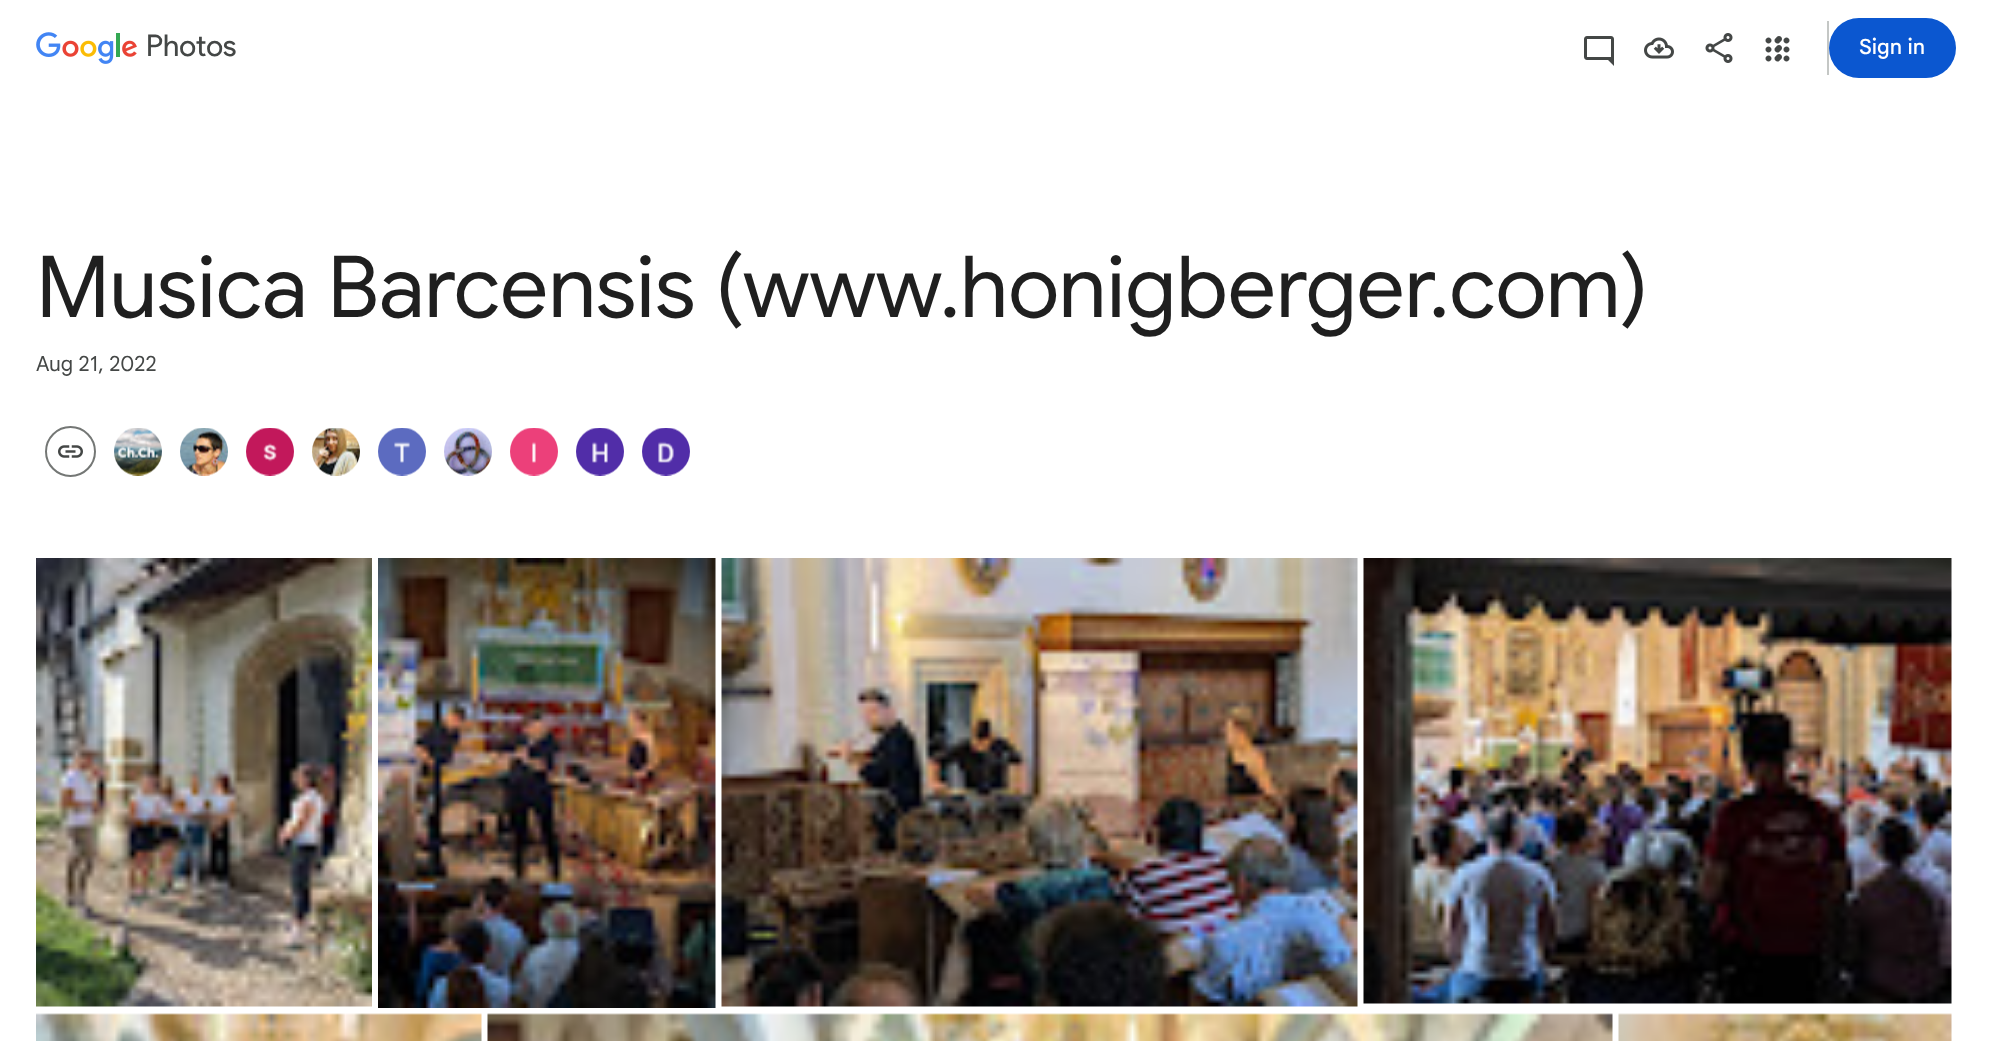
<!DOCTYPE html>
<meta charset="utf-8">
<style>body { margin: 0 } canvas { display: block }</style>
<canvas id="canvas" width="2010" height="1041"></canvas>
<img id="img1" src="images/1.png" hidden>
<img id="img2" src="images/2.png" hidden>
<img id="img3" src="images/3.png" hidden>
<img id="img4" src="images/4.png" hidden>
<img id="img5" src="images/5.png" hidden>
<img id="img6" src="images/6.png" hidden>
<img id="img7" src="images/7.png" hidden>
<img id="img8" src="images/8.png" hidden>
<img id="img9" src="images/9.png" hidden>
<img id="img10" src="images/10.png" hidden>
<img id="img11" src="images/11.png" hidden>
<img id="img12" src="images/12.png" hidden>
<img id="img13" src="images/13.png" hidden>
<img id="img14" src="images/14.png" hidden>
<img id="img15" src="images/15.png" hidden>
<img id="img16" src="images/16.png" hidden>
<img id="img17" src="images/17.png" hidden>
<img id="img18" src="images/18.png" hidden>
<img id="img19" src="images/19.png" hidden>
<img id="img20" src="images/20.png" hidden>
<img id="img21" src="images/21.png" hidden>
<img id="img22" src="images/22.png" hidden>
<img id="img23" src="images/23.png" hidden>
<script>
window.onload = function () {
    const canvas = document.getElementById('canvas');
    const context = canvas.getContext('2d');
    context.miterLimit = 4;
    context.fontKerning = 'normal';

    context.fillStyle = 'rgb(255, 255, 255)';
    context.fillRect(0, 0, 2010, 1041);
    context.drawImage(document.getElementById('img1'), 36, 32, 101, 32);
    context.drawImage(document.getElementById('img2'), 1584, 36, 30, 30);
    context.drawImage(document.getElementById('img3'), 1644, 37, 30, 22);
    context.drawImage(document.getElementById('img4'), 1705, 33, 28, 30);
    context.drawImage(document.getElementById('img5'), 1776, 36, 6, 24);
    context.fillStyle = 'rgb(196, 199, 197)';
    context.fillRect(1827, 21, 2, 54);
    context.beginPath();
    context.arc(70.5, 451.5, 24.5, 0, 2 * Math.PI);
    context.strokeStyle = 'rgb(116, 119, 117)';
    context.lineWidth = 2;
    context.stroke();
    context.drawImage(document.getElementById('img6'), 58, 445, 25, 13);
    context.drawImage(document.getElementById('img7'), 114, 428, 48, 48);
    context.drawImage(document.getElementById('img8'), 180, 428, 48, 48);
    context.drawImage(document.getElementById('img9'), 246, 428, 48, 48);
    context.drawImage(document.getElementById('img10'), 312, 428, 48, 48);
    context.drawImage(document.getElementById('img11'), 378, 428, 48, 48);
    context.drawImage(document.getElementById('img12'), 444, 428, 48, 48);
    context.drawImage(document.getElementById('img13'), 510, 428, 48, 48);
    context.drawImage(document.getElementById('img14'), 576, 428, 48, 48);
    context.drawImage(document.getElementById('img15'), 642, 428, 48, 48);
    context.drawImage(document.getElementById('img16'), 36, 558, 336, 449);
    context.drawImage(document.getElementById('img17'), 378, 558, 338, 450);
    context.drawImage(document.getElementById('img18'), 721, 558, 637, 449);
    context.drawImage(document.getElementById('img19'), 1363, 558, 589, 446);
    context.drawImage(document.getElementById('img20'), 36, 1013, 446, 28);
    context.drawImage(document.getElementById('img21'), 487, 1013, 1126, 28);
    context.drawImage(document.getElementById('img22'), 1618, 1013, 334, 28);
    context.drawImage(document.getElementById('img23'), 1765, 37, 25, 25);
    context.fillStyle = 'rgb(11, 87, 208)';
    context.beginPath();
    context.roundRect(1829, 18, 127, 60, 30);
    context.fill();
    context.font = '30px Product Sans';
    context.fillStyle = 'rgb(68, 71, 70)';
    context.fillText('Photos', 146, 56);
    context.font = '85.5px Google Sans';
    context.fillStyle = 'rgb(31, 31, 31)';
    context.fillText('Musica Barcensis (www.honigberger.com)', 36, 317);
    context.font = '21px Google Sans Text';
    context.fillStyle = 'rgb(68, 71, 70)';
    context.fillText('Aug 21, 2022', 36, 371);
    context.font = '500 21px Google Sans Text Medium';
    context.fillStyle = 'rgb(255, 255, 255)';
    context.fillText('Sign in', 1859, 54);
};
</script>
